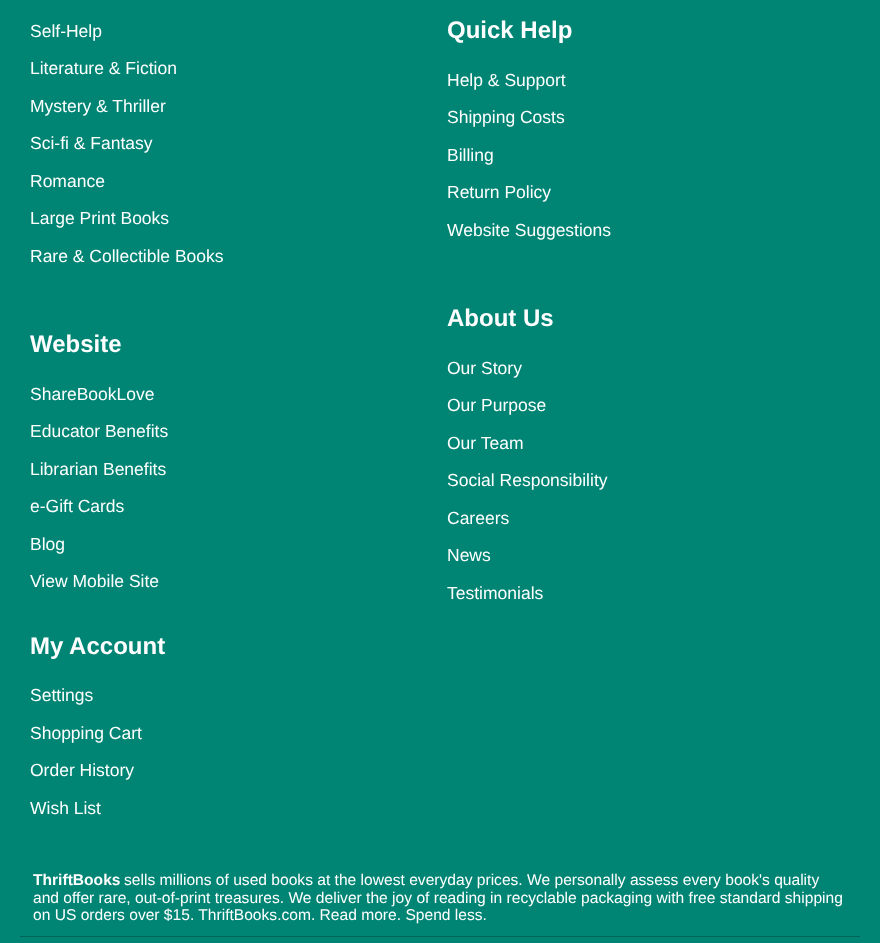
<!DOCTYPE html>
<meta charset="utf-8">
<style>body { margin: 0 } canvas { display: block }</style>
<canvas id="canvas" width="880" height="943"></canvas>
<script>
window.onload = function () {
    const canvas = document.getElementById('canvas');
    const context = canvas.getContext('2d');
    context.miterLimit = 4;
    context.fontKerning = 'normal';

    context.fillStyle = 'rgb(0, 133, 117)';
    context.fillRect(0, 0, 880, 943);
    context.fillStyle = 'rgb(0, 100, 88)';
    context.fillRect(20, 936, 840, 1);
    context.font = '17.5px Liberation Sans';
    context.fillStyle = 'rgb(255, 255, 255)';
    context.fillText('Self-Help', 30, 37);
    context.fillText('Literature & Fiction', 30, 74);
    context.fillText('Mystery & Thriller', 30, 112);
    context.fillText('Sci-fi & Fantasy', 30, 149);
    context.fillText('Romance', 30, 187);
    context.fillText('Large Print Books', 30, 224);
    context.fillText('Rare & Collectible Books', 30, 262);
    context.font = 'bold 24px Liberation Sans';
    context.fillText('Website', 30, 352);
    context.font = '17.5px Liberation Sans';
    context.fillText('ShareBookLove', 30, 400);
    context.fillText('Educator Benefits', 30, 437);
    context.fillText('Librarian Benefits', 30, 475);
    context.fillText('e-Gift Cards', 30, 512);
    context.fillText('Blog', 30, 550);
    context.fillText('View Mobile Site', 30, 587);
    context.font = 'bold 24px Liberation Sans';
    context.fillText('My Account', 30, 654);
    context.font = '17.5px Liberation Sans';
    context.fillText('Settings', 30, 701);
    context.fillText('Shopping Cart', 30, 739);
    context.fillText('Order History', 30, 776);
    context.fillText('Wish List', 30, 814);
    context.font = 'bold 24px Liberation Sans';
    context.fillText('Quick Help', 447, 38);
    context.font = '17.5px Liberation Sans';
    context.fillText('Help & Support', 447, 86);
    context.fillText('Shipping Costs', 447, 123);
    context.fillText('Billing', 447, 161);
    context.fillText('Return Policy', 447, 198);
    context.fillText('Website Suggestions', 447, 236);
    context.font = 'bold 24px Liberation Sans';
    context.fillText('About Us', 447, 326);
    context.font = '17.5px Liberation Sans';
    context.fillText('Our Story', 447, 374);
    context.fillText('Our Purpose', 447, 411);
    context.fillText('Our Team', 447, 449);
    context.fillText('Social Responsibility', 447, 486);
    context.fillText('Careers', 447, 524);
    context.fillText('News', 447, 561);
    context.fillText('Testimonials', 447, 599);
    context.font = 'bold 15.6px Liberation Sans';
    context.fillText('ThriftBooks', 33, 885);
    context.font = '15.6px Liberation Sans';
    context.fillText('sells millions of used books at the lowest everyday prices. We personally assess every book\'s quality', 124, 885);
    context.fillText('and offer rare, out-of-print treasures. We deliver the joy of reading in recyclable packaging with free standard shipping', 33, 903);
    context.fillText('on US orders over $15. ThriftBooks.com. Read more. Spend less.', 33, 920);
};
</script>
